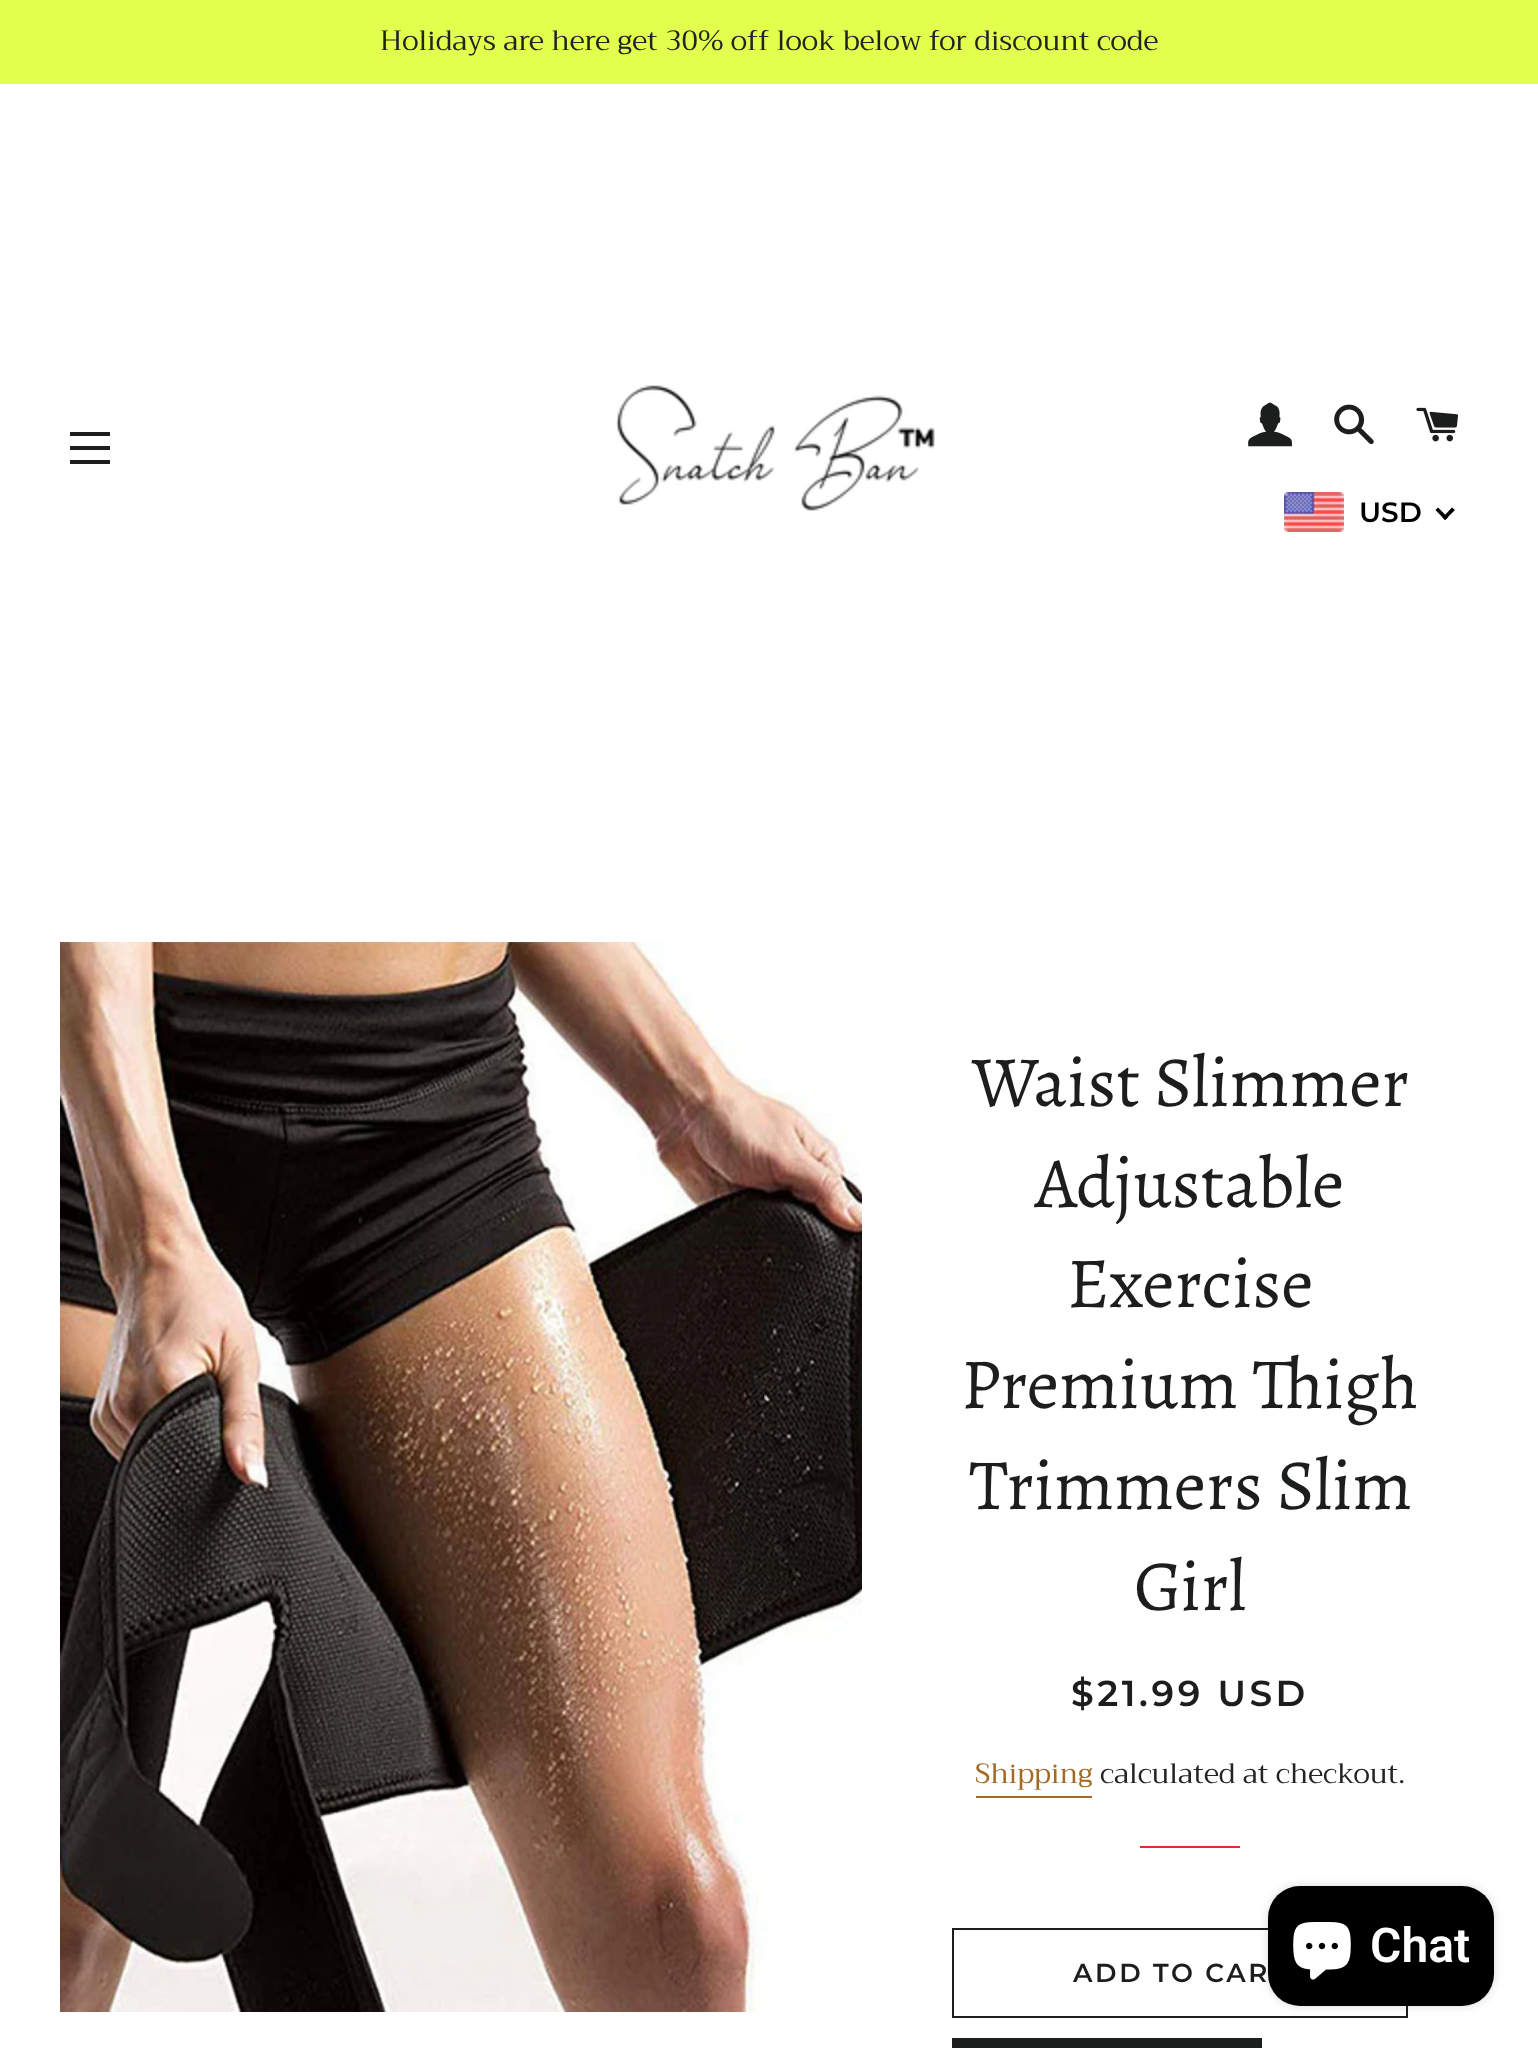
<!DOCTYPE html>
<meta charset="utf-8">
<style>body { margin: 0 } canvas { display: block }</style>
<canvas id="canvas" width="1538" height="2048"></canvas>
<img id="img1" src="images/1.png" hidden>
<img id="img2" src="images/2.png" hidden>
<img id="img3" src="images/3.png" hidden>
<img id="img4" src="images/4.png" hidden>
<img id="img5" src="images/5.png" hidden>
<img id="img6" src="images/6.png" hidden>
<img id="img7" src="images/7.png" hidden>
<script>
window.onload = function () {
    const canvas = document.getElementById('canvas');
    const context = canvas.getContext('2d');
    context.miterLimit = 4;
    context.fontKerning = 'normal';

    context.fillStyle = 'rgb(255, 255, 255)';
    context.fillRect(0, 0, 1538, 2048);
    context.fillStyle = 'rgb(226, 255, 77)';
    context.fillRect(0, 0, 1538, 84);
    context.fillStyle = 'rgb(28, 29, 29)';
    context.fillRect(70, 432, 40, 4);
    context.fillRect(70, 446, 40, 4);
    context.fillRect(70, 460, 40, 4);
    context.drawImage(document.getElementById('img1'), 616, 385, 319, 126);
    context.drawImage(document.getElementById('img2'), 1248, 402, 44, 45);
    context.drawImage(document.getElementById('img3'), 1334, 404, 40, 40);
    context.drawImage(document.getElementById('img4'), 1416, 407, 42, 35);
    context.drawImage(document.getElementById('img5'), 1284, 492, 60, 40);
    context.fillStyle = 'rgb(0, 0, 0)';
    context.beginPath();
    context.moveTo(1452, 507.5);
    context.lineTo(1455, 510);
    context.lineTo(1445, 520);
    context.lineTo(1442.5, 517.5);
    context.closePath();
    context.fill();
    context.beginPath();
    context.moveTo(1438, 507.5);
    context.lineTo(1448, 517.5);
    context.lineTo(1445, 520);
    context.lineTo(1435.5, 510);
    context.closePath();
    context.fill();
    context.drawImage(document.getElementById('img6'), 60, 942, 802, 1070);
    context.fillStyle = 'rgb(162, 107, 37)';
    context.fillRect(976, 1796, 116, 2);
    context.fillStyle = 'rgb(227, 44, 43)';
    context.fillRect(1140, 1846, 100, 2);
    context.strokeStyle = 'rgb(28, 29, 29)';
    context.lineWidth = 2;
    context.strokeRect(953, 1929, 454, 88);
    context.fillStyle = 'rgb(28, 29, 29)';
    context.fillRect(952, 2038, 310, 10);
    context.fillStyle = 'rgba(0, 0, 0, 0.15)';
    context.filter = 'blur(5px)';
    context.beginPath();
    context.roundRect(1268, 1886, 226, 120, 32);
    context.fill();
    context.filter = 'none';
    context.fillStyle = 'rgb(0, 0, 0)';
    context.beginPath();
    context.roundRect(1268, 1886, 226, 120, 32);
    context.fill();
    context.drawImage(document.getElementById('img7'), 1293, 1922, 58, 58);
    context.font = '28px Trirong';
    context.fillStyle = 'rgb(34, 35, 35)';
    context.fillText('Holidays are here get 30% off look below for discount code', 380, 50);
    context.font = '600 28px Montserrat';
    context.fillStyle = 'rgb(0, 0, 0)';
    context.fillText('USD', 1359, 522);
    context.font = '72px Alegreya';
    context.fillStyle = 'rgb(28, 29, 29)';
    context.fillText('Waist Slimmer', 972, 1106);
    context.fillText('Adjustable', 1035, 1207);
    context.fillText('Exercise', 1067, 1307);
    context.fillText('Premium Thigh', 961, 1408);
    context.fillText('Trimmers Slim', 969, 1509);
    context.fillText('Girl', 1134, 1610);
    context.letterSpacing = '3.6px';
    context.font = '600 36px Montserrat';
    context.fillText('$21.99 USD', 1071, 1706);
    context.letterSpacing = '0px';
    context.font = '28px Trirong';
    context.fillStyle = 'rgb(162, 107, 37)';
    context.fillText('Shipping', 975, 1783);
    context.fillStyle = 'rgb(34, 35, 35)';
    context.fillText('calculated at checkout.', 1100, 1783);
    context.letterSpacing = '2.6px';
    context.font = '600 26px Montserrat';
    context.fillStyle = 'rgb(28, 29, 29)';
    context.fillText('ADD TO CAR', 1073, 1982);
    context.letterSpacing = '0px';
    context.font = '600 48px Roboto';
    context.fillStyle = 'rgb(255, 255, 255)';
    context.fillText('Chat', 1370, 1962);
};
</script>
